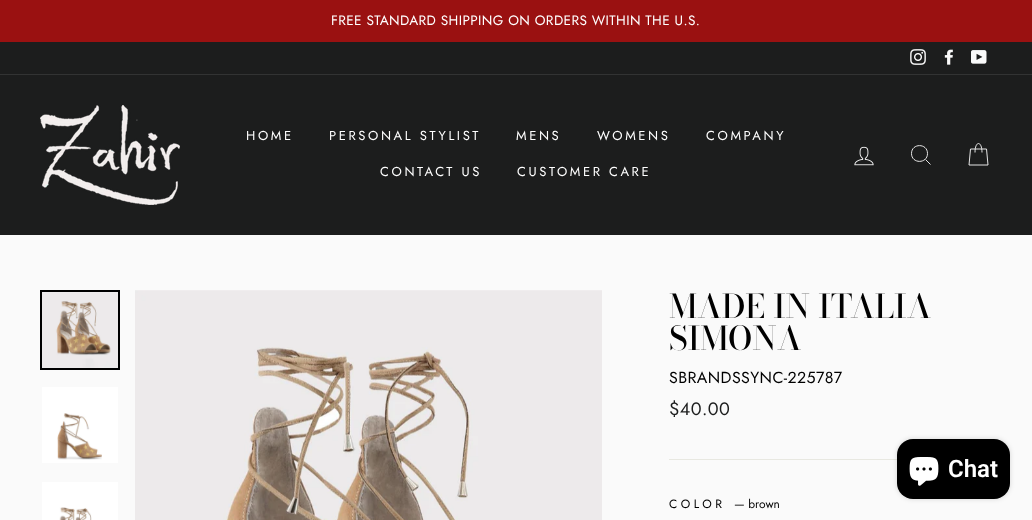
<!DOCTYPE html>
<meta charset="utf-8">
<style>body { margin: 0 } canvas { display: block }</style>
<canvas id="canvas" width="1032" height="520"></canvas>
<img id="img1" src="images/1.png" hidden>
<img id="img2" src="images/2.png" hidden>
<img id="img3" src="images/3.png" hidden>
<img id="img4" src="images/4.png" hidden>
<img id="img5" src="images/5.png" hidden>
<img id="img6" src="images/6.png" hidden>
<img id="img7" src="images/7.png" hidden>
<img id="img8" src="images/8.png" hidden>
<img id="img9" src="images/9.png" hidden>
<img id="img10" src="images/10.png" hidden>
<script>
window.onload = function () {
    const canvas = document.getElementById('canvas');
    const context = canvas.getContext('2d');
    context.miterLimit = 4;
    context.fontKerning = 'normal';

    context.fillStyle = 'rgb(250, 250, 250)';
    context.fillRect(0, 0, 1032, 520);
    context.fillStyle = 'rgb(154, 17, 17)';
    context.fillRect(0, 0, 1032, 42);
    context.fillStyle = 'rgb(28, 29, 29)';
    context.fillRect(0, 42, 1032, 32);
    context.drawImage(document.getElementById('img1'), 910, 49, 16, 16);
    context.drawImage(document.getElementById('img2'), 944, 49, 9, 16);
    context.drawImage(document.getElementById('img3'), 971, 50, 16, 14);
    context.fillRect(0, 75, 1032, 160);
    context.fillStyle = 'rgb(50, 51, 51)';
    context.fillRect(0, 74, 1032, 1);
    context.drawImage(document.getElementById('img4'), 40, 105, 140, 100);
    context.drawImage(document.getElementById('img5'), 854, 146, 20, 20);
    context.beginPath();
    context.moveTo(927.5, 153.5);
    context.bezierCurveTo(927.5, 164, 911.5, 164, 911.5, 153.5);
    context.bezierCurveTo(911.5, 143, 927.5, 143, 927.5, 153.5);
    context.closePath();
    context.moveTo(930.5, 164.5);
    context.lineTo(925.5, 159.5);
    context.strokeStyle = 'rgb(250, 250, 250)';
    context.lineWidth = 0.9;
    context.stroke();
    context.beginPath();
    context.moveTo(975, 152.5);
    context.bezierCurveTo(975, 140.5, 982, 140.5, 982, 152.5);
    context.moveTo(970.5, 149);
    context.lineTo(986.5, 149);
    context.lineTo(988, 165);
    context.lineTo(969, 165);
    context.closePath();
    context.stroke();
    context.strokeStyle = 'rgb(0, 0, 0)';
    context.lineWidth = 2;
    context.strokeRect(41, 291, 78, 78);
    context.drawImage(document.getElementById('img6'), 42, 292, 76, 76);
    context.fillStyle = 'rgb(255, 255, 255)';
    context.fillRect(42, 387, 76, 76);
    context.drawImage(document.getElementById('img7'), 57, 413, 45, 47);
    context.fillRect(42, 482, 76, 38);
    context.drawImage(document.getElementById('img8'), 59, 507, 33, 13);
    context.drawImage(document.getElementById('img9'), 135, 290, 467, 230);
    context.fillStyle = 'rgb(232, 232, 225)';
    context.fillRect(669, 459, 228, 1);
    context.fillStyle = 'rgba(0, 0, 0, 0.15)';
    context.filter = 'blur(2.5px)';
    context.beginPath();
    context.roundRect(897, 439, 113, 60, 16);
    context.fill();
    context.filter = 'none';
    context.fillStyle = 'rgb(0, 0, 0)';
    context.beginPath();
    context.roundRect(897, 439, 113, 60, 16);
    context.fill();
    context.drawImage(document.getElementById('img10'), 909, 457, 30, 29);
    context.letterSpacing = '0.4px';
    context.font = '13.6px Jost';
    context.fillStyle = 'rgb(255, 255, 255)';
    context.fillText('FREE STANDARD SHIPPING ON ORDERS WITHIN THE U.S.', 331, 25);
    context.letterSpacing = '2.6px';
    context.font = '13px Jost';
    context.fillText('HOME', 246, 140);
    context.fillText('PERSONAL STYLIST', 329, 140);
    context.fillText('MENS', 516, 140);
    context.fillText('WOMENS', 597, 140);
    context.fillText('COMPANY', 706, 140);
    context.fillText('CONTACT US', 380, 176);
    context.fillText('CUSTOMER CARE', 517, 176);
    context.letterSpacing = '0px';
    context.font = '500 32.75px Bodoni Moda';
    context.fillStyle = 'rgb(0, 0, 0)';
    context.fillText('MADE IN ITALIA', 669, 318);
    context.fillText('SIMONA', 669, 350);
    context.letterSpacing = '0.4px';
    context.font = '16px Jost';
    context.fillText('SBRANDSSYNC-225787', 669, 383);
    context.font = '18px Jost';
    context.fillStyle = 'rgb(28, 29, 29)';
    context.fillText('$40.00', 669, 415);
    context.letterSpacing = '3.5px';
    context.font = '12px Jost';
    context.fillStyle = 'rgb(0, 0, 0)';
    context.fillText('COLOR', 669, 508);
    context.letterSpacing = '0px';
    context.fillText('— brown', 734, 508);
    context.font = '600 24px Roboto';
    context.fillStyle = 'rgb(255, 255, 255)';
    context.fillText('Chat', 948, 477);
};
</script>
